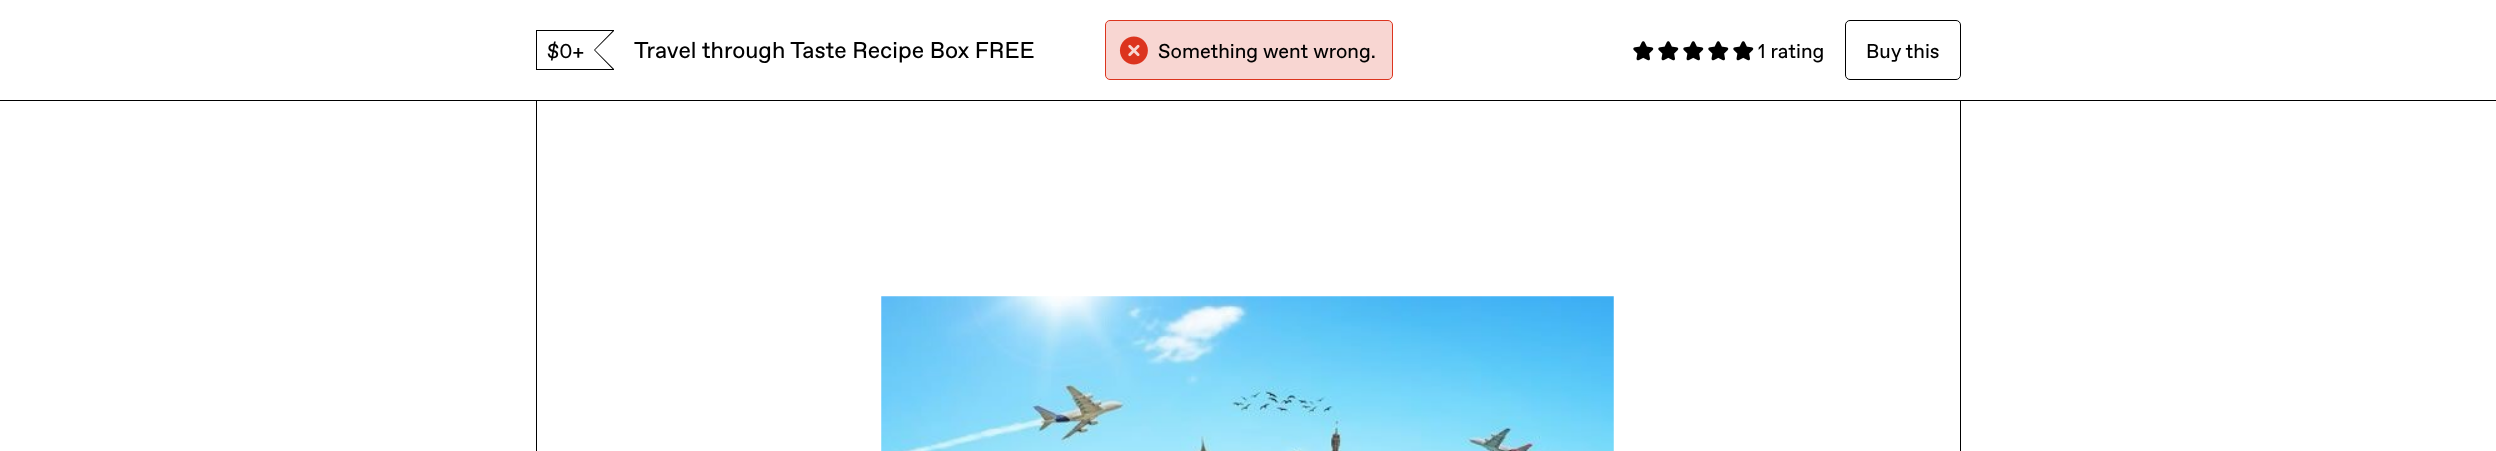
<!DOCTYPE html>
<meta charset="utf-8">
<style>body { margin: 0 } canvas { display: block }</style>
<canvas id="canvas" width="2496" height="451"></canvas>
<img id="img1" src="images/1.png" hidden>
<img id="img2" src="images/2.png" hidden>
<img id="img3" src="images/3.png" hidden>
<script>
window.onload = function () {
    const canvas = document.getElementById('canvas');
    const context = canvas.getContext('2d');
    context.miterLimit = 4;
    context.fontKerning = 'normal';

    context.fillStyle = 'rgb(255, 255, 255)';
    context.fillRect(0, 0, 2496, 451);
    context.strokeStyle = 'rgb(0, 0, 0)';
    context.strokeRect(536.5, 80.5, 1424, 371);
    context.fillStyle = 'rgb(0, 0, 0)';
    context.fillRect(0, 100, 2496, 1);
    context.fillStyle = 'rgb(255, 255, 255)';
    context.fillRect(536, 80, 1425, 20);
    context.fillStyle = 'rgb(0, 0, 0)';
    context.fillRect(536, 30, 78, 1);
    context.fillRect(536, 69, 78, 1);
    context.fillRect(536, 30, 1, 40);
    context.beginPath();
    context.moveTo(594, 31);
    context.lineTo(614, 31);
    context.lineTo(595, 50);
    context.closePath();
    context.moveTo(614, 69);
    context.lineTo(594, 69);
    context.lineTo(595, 50);
    context.closePath();
    context.fill();
    context.fillRect(594, 49, 1, 2);
    context.fillStyle = 'rgb(255, 255, 255)';
    context.beginPath();
    context.moveTo(592.5, 31);
    context.lineTo(612.5, 31);
    context.lineTo(594, 50);
    context.closePath();
    context.moveTo(612.5, 69);
    context.lineTo(592.5, 69);
    context.lineTo(594, 50);
    context.closePath();
    context.fill();
    context.drawImage(document.getElementById('img1'), 1633, 41, 21, 20);
    context.drawImage(document.getElementById('img1'), 1658, 41, 21, 20);
    context.drawImage(document.getElementById('img1'), 1683, 41, 21, 20);
    context.drawImage(document.getElementById('img1'), 1708, 41, 21, 20);
    context.drawImage(document.getElementById('img1'), 1733, 41, 21, 20);
    context.beginPath();
    context.roundRect(1845.5, 20.5, 115, 59, 4.5);
    context.stroke();
    context.drawImage(document.getElementById('img2'), 881, 296, 733, 155);
    context.fillStyle = 'rgb(248, 214, 210)';
    context.beginPath();
    context.roundRect(1105.5, 20.5, 287, 59, 4.5);
    context.fill();
    context.strokeStyle = 'rgb(220, 52, 30)';
    context.stroke();
    context.drawImage(document.getElementById('img3'), 1119, 36, 29, 29);
    context.font = '20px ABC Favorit';
    context.fillStyle = 'rgb(0, 0, 0)';
    context.fillText('$0+', 547, 58);
    context.font = '23px ABC Favorit';
    context.fillText('Travel through Taste Recipe Box FREE', 634, 58);
    context.font = '20px ABC Favorit';
    context.fillText('1 rating', 1758, 58);
    context.fillText('Buy this', 1866, 58);
    context.fillText('Something went wrong.', 1158, 58);
};
</script>
